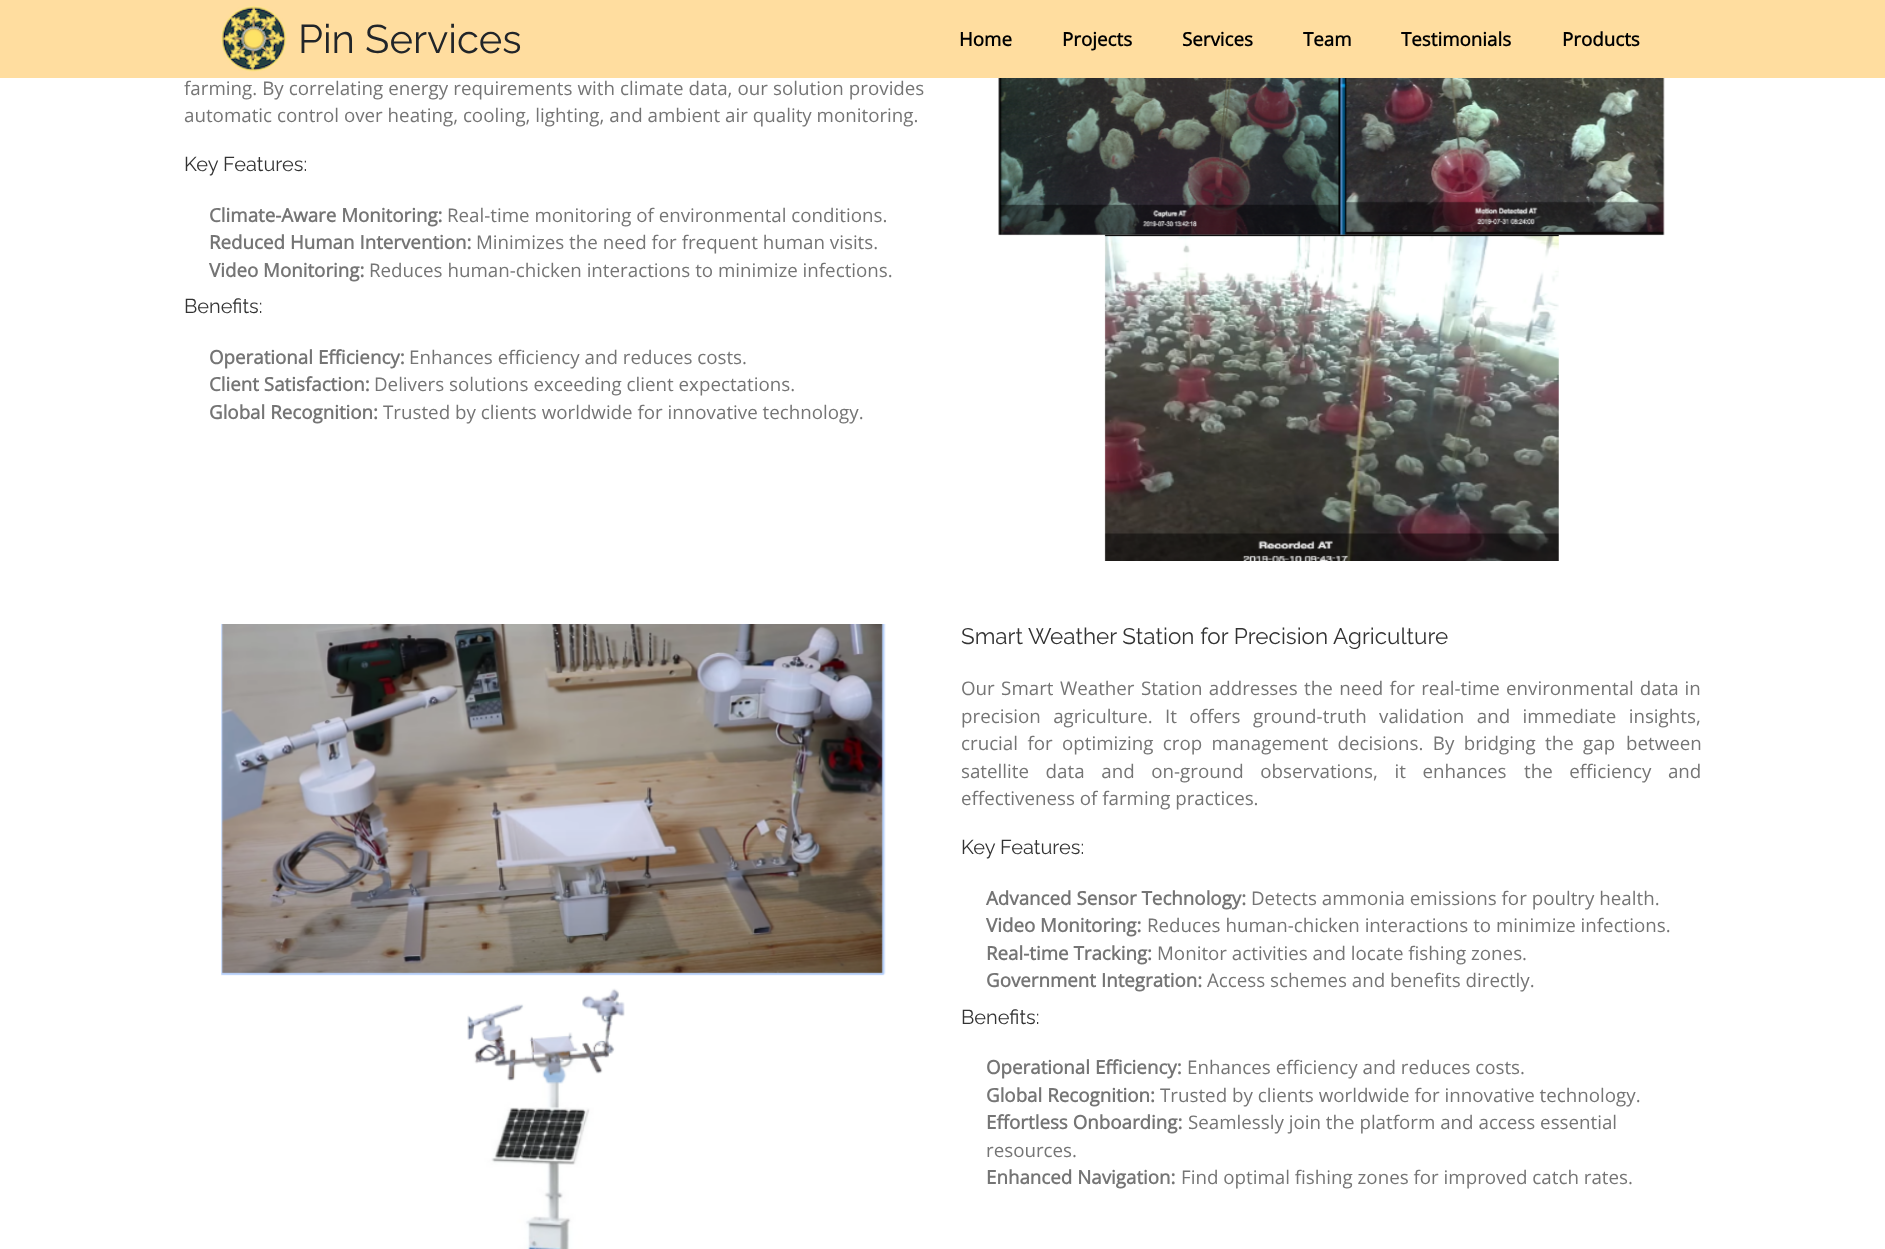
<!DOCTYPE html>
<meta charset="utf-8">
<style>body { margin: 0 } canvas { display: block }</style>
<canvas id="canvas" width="1885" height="1249"></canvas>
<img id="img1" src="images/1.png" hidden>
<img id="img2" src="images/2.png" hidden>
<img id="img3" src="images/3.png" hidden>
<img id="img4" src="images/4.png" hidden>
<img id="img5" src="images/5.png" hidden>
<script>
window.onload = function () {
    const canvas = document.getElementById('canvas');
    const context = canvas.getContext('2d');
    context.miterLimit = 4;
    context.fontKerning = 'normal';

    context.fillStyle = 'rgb(255, 255, 255)';
    context.fillRect(0, 0, 1885, 1249);
    context.fillStyle = 'rgb(255, 221, 159)';
    context.fillRect(0, 0, 1885, 78);
    context.drawImage(document.getElementById('img1'), 221, 6, 66, 66);
    context.drawImage(document.getElementById('img2'), 998, 78, 667, 158);
    context.drawImage(document.getElementById('img3'), 1104, 234, 455, 327);
    context.drawImage(document.getElementById('img4'), 221, 624, 665, 352);
    context.drawImage(document.getElementById('img5'), 467, 988, 158, 261);
    context.font = '40px Raleway';
    context.fillStyle = 'rgb(33, 37, 41)';
    context.fillText('Pin Services', 298, 53);
    context.font = 'bold 18.75px Open Sans';
    context.fillStyle = 'rgb(0, 0, 0)';
    context.fillText('Home', 959, 46);
    context.fillText('Projects', 1062, 46);
    context.fillText('Services', 1182, 46);
    context.fillText('Team', 1303, 46);
    context.fillText('Testimonials', 1401, 46);
    context.fillText('Products', 1562, 46);
    context.wordSpacing = '0.25px';
    context.font = '18.75px Open Sans';
    context.fillStyle = 'rgb(117, 117, 117)';
    context.fillText('farming. By correlating energy requirements with climate data, our solution provides', 184, 95);
    context.wordSpacing = '0px';
    context.fillText('automatic control over heating, cooling, lighting, and ambient air quality monitoring.', 184, 122);
    context.font = '20px Raleway';
    context.fillStyle = 'rgb(51, 51, 51)';
    context.fillText('Key Features:', 184, 171);
    context.font = 'bold 18.75px Open Sans';
    context.fillStyle = 'rgb(117, 117, 117)';
    context.fillText('Climate-Aware Monitoring:', 209, 222);
    context.font = '18.75px Open Sans';
    context.fillText('Real-time monitoring of environmental conditions.', 447, 222);
    context.font = 'bold 18.75px Open Sans';
    context.fillText('Reduced Human Intervention:', 209, 249);
    context.font = '18.75px Open Sans';
    context.fillText('Minimizes the need for frequent human visits.', 476, 249);
    context.font = 'bold 18.75px Open Sans';
    context.fillText('Video Monitoring:', 209, 277);
    context.font = '18.75px Open Sans';
    context.fillText('Reduces human-chicken interactions to minimize infections.', 369, 277);
    context.font = '20px Raleway';
    context.fillStyle = 'rgb(51, 51, 51)';
    context.fillText('Benefits:', 184, 313);
    context.font = 'bold 18.75px Open Sans';
    context.fillStyle = 'rgb(117, 117, 117)';
    context.fillText('Operational Efficiency:', 209, 364);
    context.font = '18.75px Open Sans';
    context.fillText('Enhances efficiency and reduces costs.', 409, 364);
    context.font = 'bold 18.75px Open Sans';
    context.fillText('Client Satisfaction:', 209, 391);
    context.font = '18.75px Open Sans';
    context.fillText('Delivers solutions exceeding client expectations.', 374, 391);
    context.font = 'bold 18.75px Open Sans';
    context.fillText('Global Recognition:', 209, 419);
    context.font = '18.75px Open Sans';
    context.fillText('Trusted by clients worldwide for innovative technology.', 383, 419);
    context.font = '22.5px Raleway';
    context.fillStyle = 'rgb(51, 51, 51)';
    context.fillText('Smart Weather Station for Precision Agriculture', 961, 644);
    context.wordSpacing = '1.5px';
    context.font = '18.75px Open Sans';
    context.fillStyle = 'rgb(117, 117, 117)';
    context.fillText('Our Smart Weather Station addresses the need for real-time', 961, 695);
    context.wordSpacing = '1px';
    context.fillText('environmental data in', 1506, 695);
    context.wordSpacing = '7.5px';
    context.fillText('precision agriculture. It offers', 961, 723);
    context.fillText('ground-truth validation and immediate insights,', 1253, 723);
    context.wordSpacing = '4.5px';
    context.fillText('crucial for', 961, 750);
    context.fillText('optimizing crop management decisions. By bridging the gap', 1062, 750);
    context.wordSpacing = '0px';
    context.fillText('between', 1626, 750);
    context.wordSpacing = '11.75px';
    context.fillText('satellite data and on-ground observations, it enhances', 961, 778);
    context.fillText('the efficiency and', 1524, 778);
    context.wordSpacing = '0px';
    context.fillText('effectiveness of farming practices.', 961, 805);
    context.font = '20px Raleway';
    context.fillStyle = 'rgb(51, 51, 51)';
    context.fillText('Key Features:', 961, 854);
    context.font = 'bold 18.75px Open Sans';
    context.fillStyle = 'rgb(117, 117, 117)';
    context.fillText('Advanced Sensor Technology:', 986, 905);
    context.font = '18.75px Open Sans';
    context.fillText('Detects ammonia emissions for poultry health.', 1251, 905);
    context.font = 'bold 18.75px Open Sans';
    context.fillText('Video Monitoring:', 986, 932);
    context.font = '18.75px Open Sans';
    context.fillText('Reduces human-chicken interactions to minimize infections.', 1147, 932);
    context.font = 'bold 18.75px Open Sans';
    context.fillText('Real-time Tracking:', 986, 960);
    context.font = '18.75px Open Sans';
    context.fillText('Monitor activities and locate fishing zones.', 1157, 960);
    context.font = 'bold 18.75px Open Sans';
    context.fillText('Government Integration:', 986, 987);
    context.font = '18.75px Open Sans';
    context.fillText('Access schemes and benefits directly.', 1207, 987);
    context.font = '20px Raleway';
    context.fillStyle = 'rgb(51, 51, 51)';
    context.fillText('Benefits:', 961, 1024);
    context.font = 'bold 18.75px Open Sans';
    context.fillStyle = 'rgb(117, 117, 117)';
    context.fillText('Operational Efficiency:', 986, 1074);
    context.font = '18.75px Open Sans';
    context.fillText('Enhances efficiency and reduces costs.', 1187, 1074);
    context.font = 'bold 18.75px Open Sans';
    context.fillText('Global Recognition:', 986, 1102);
    context.font = '18.75px Open Sans';
    context.fillText('Trusted by clients worldwide for innovative technology.', 1160, 1102);
    context.font = 'bold 18.75px Open Sans';
    context.fillText('Effortless Onboarding:', 986, 1129);
    context.font = '18.75px Open Sans';
    context.fillText('Seamlessly join the platform and access essential', 1188, 1129);
    context.fillText('resources.', 986, 1157);
    context.font = 'bold 18.75px Open Sans';
    context.fillText('Enhanced Navigation:', 986, 1184);
    context.font = '18.75px Open Sans';
    context.fillText('Find optimal fishing zones for improved catch rates.', 1181, 1184);
};
</script>
